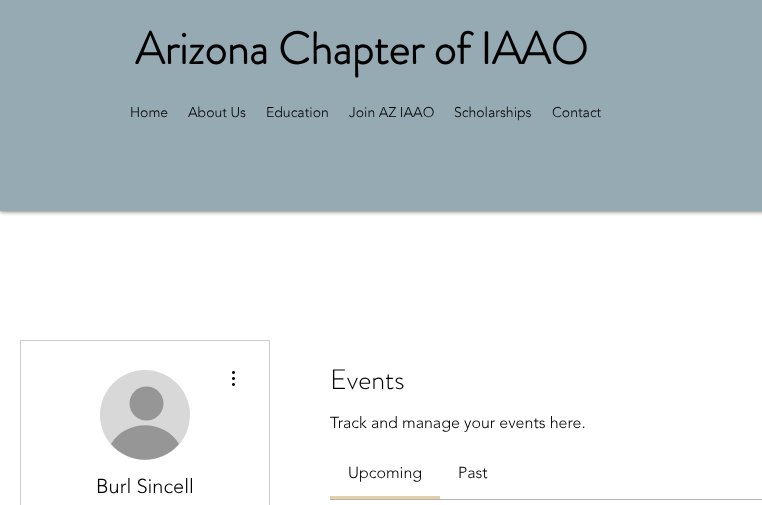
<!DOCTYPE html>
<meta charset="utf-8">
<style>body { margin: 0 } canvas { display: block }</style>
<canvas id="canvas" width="762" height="505"></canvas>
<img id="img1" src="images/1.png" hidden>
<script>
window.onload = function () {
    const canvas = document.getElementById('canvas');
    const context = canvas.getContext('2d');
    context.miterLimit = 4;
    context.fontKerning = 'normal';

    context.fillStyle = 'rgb(255, 255, 255)';
    context.fillRect(0, 0, 762, 505);
    context.fillStyle = 'rgba(0, 0, 0, 0.7)';
    context.filter = 'blur(2.5px)';
    context.beginPath();
    context.rect(0, 0, 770, 211);
    context.fill();
    context.filter = 'none';
    context.fillStyle = 'rgb(150, 170, 180)';
    context.fillRect(0, 0, 762, 211);
    context.fillStyle = 'rgb(227, 208, 168)';
    context.fillRect(330, 496, 110, 3);
    context.fillStyle = 'rgb(179, 179, 179)';
    context.fillRect(330, 499, 432, 1);
    context.strokeStyle = 'rgb(204, 204, 204)';
    context.strokeRect(20.5, 340.5, 249, 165);
    context.fillStyle = 'rgb(216, 216, 216)';
    context.beginPath();
    context.arc(145, 415, 45, 0, 2 * Math.PI);
    context.fill();
    context.fillStyle = 'rgb(150, 150, 150)';
    context.beginPath();
    context.arc(146.5, 403.5, 17, 0, 2 * Math.PI);
    context.fill();
    context.beginPath();
    context.moveTo(179, 444);
    context.bezierCurveTo(161, 465, 129, 465, 111, 444);
    context.bezierCurveTo(126, 419, 164, 419, 179, 444);
    context.closePath();
    context.fill();
    context.drawImage(document.getElementById('img1'), 232, 371, 3, 15);
    context.font = 'bold 45px "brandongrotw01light"';
    context.fillStyle = 'rgb(0, 0, 0)';
    context.fillText('Arizona Chapter of IAAO', 135, 64);
    context.font = '300 14px "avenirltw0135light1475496"';
    context.fillText('Home', 130, 117);
    context.fillText('About Us', 188, 117);
    context.fillText('Education', 266, 117);
    context.fillText('Join AZ IAAO', 349, 117);
    context.fillText('Scholarships', 454, 117);
    context.fillText('Contact', 552, 117);
    context.font = '300 28px "brandongrotw01light"';
    context.fillText('Events', 330, 389);
    context.font = '300 16px "avenirltw0135light1475496"';
    context.fillText('Track and manage your events here.', 330, 428);
    context.fillText('Upcoming', 348, 478);
    context.fillText('Past', 458, 478);
    context.font = '300 20px "avenirltw0135light1475496"';
    context.fillText('Burl Sincell', 96, 493);
};
</script>
